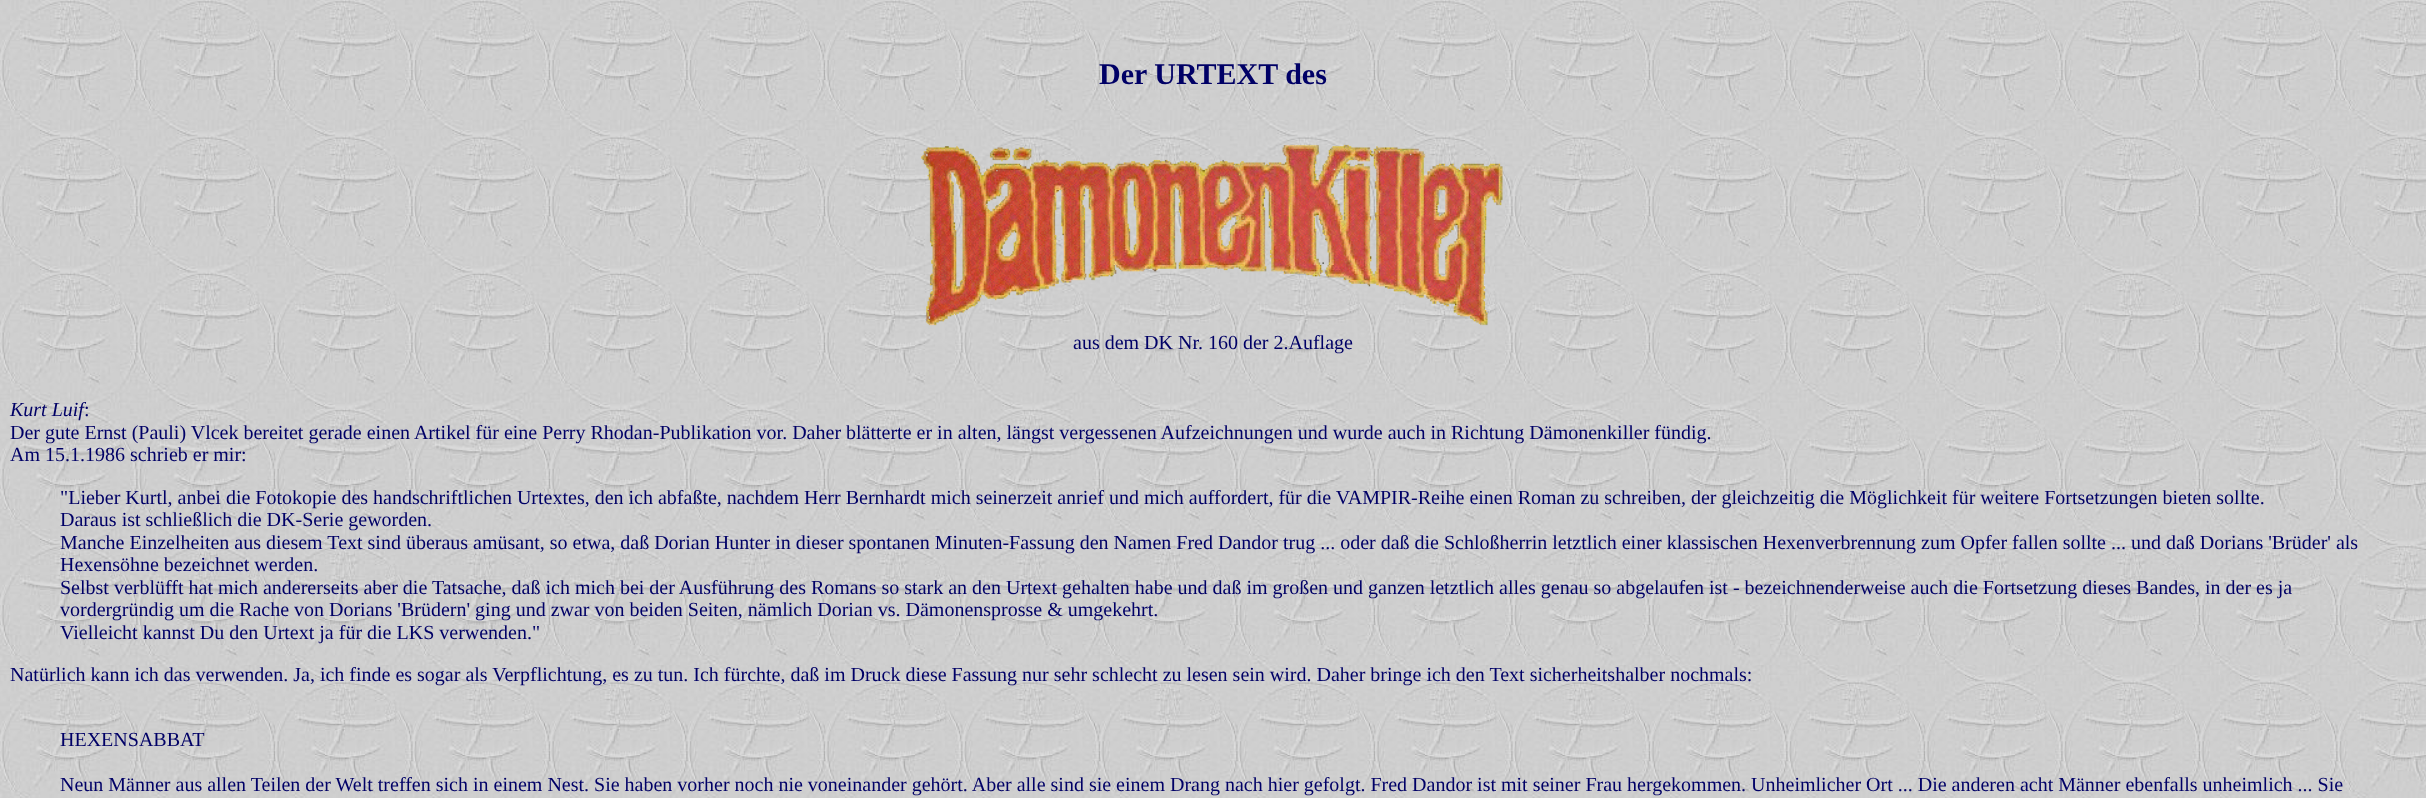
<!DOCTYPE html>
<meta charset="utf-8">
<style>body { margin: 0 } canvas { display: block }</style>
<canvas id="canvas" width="2426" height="798"></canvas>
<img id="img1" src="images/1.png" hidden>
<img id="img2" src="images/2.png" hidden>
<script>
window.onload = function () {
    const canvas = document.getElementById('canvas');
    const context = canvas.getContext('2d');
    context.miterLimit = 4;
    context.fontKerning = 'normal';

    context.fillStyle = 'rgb(255, 255, 255)';
    context.fillRect(0, 0, 2426, 798);
    context.drawImage(document.getElementById('img1'), 0, 0, 2426, 798);
    context.drawImage(document.getElementById('img2'), 921, 144, 582, 182);
    context.font = 'bold 30px Liberation Serif';
    context.fillStyle = 'rgb(0, 0, 102)';
    context.fillText('Der URTEXT des', 1099, 84);
    context.font = '20px Liberation Serif';
    context.fillText('aus dem DK Nr. 160 der 2.Auflage', 1073, 349);
    context.font = 'italic 20px Liberation Serif';
    context.fillText('Kurt Luif', 10, 416);
    context.font = '20px Liberation Serif';
    context.fillText(':', 84, 416);
    context.fillText('Der gute Ernst (Pauli) Vlcek bereitet gerade einen Artikel für eine Perry Rhodan-Publikation vor. Daher blätterte er in alten, längst vergessenen Aufzeichnungen und wurde auch in Richtung Dämonenkiller fündig.', 10, 439);
    context.fillText('Am 15.1.1986 schrieb er mir:', 10, 461);
    context.fillText('"Lieber Kurtl, anbei die Fotokopie des handschriftlichen Urtextes, den ich abfaßte, nachdem Herr Bernhardt mich seinerzeit anrief und mich auffordert, für die VAMPIR-Reihe einen Roman zu schreiben, der gleichzeitig die Möglichkeit für weitere Fortsetzungen bieten sollte.', 60, 504);
    context.fillText('Daraus ist schließlich die DK-Serie geworden.', 60, 526);
    context.fillText('Manche Einzelheiten aus diesem Text sind überaus amüsant, so etwa, daß Dorian Hunter in dieser spontanen Minuten-Fassung den Namen Fred Dandor trug ... oder daß die Schloßherrin letztlich einer klassischen Hexenverbrennung zum Opfer fallen sollte ... und daß Dorians \'Brüder\' als', 60, 549);
    context.fillText('Hexensöhne bezeichnet werden.', 60, 571);
    context.fillText('Selbst verblüfft hat mich andererseits aber die Tatsache, daß ich mich bei der Ausführung des Romans so stark an den Urtext gehalten habe und daß im großen und ganzen letztlich alles genau so abgelaufen ist - bezeichnenderweise auch die Fortsetzung dieses Bandes, in der es ja', 60, 594);
    context.fillText('vordergründig um die Rache von Dorians \'Brüdern\' ging und zwar von beiden Seiten, nämlich Dorian vs. Dämonensprosse & umgekehrt.', 60, 616);
    context.fillText('Vielleicht kannst Du den Urtext ja für die LKS verwenden."', 60, 639);
    context.fillText('Natürlich kann ich das verwenden. Ja, ich finde es sogar als Verpflichtung, es zu tun. Ich fürchte, daß im Druck diese Fassung nur sehr schlecht zu lesen sein wird. Daher bringe ich den Text sicherheitshalber nochmals:', 10, 681);
    context.fillText('HEXENSABBAT', 60, 746);
    context.fillText('Neun Männer aus allen Teilen der Welt treffen sich in einem Nest. Sie haben vorher noch nie voneinander gehört. Aber alle sind sie einem Drang nach hier gefolgt. Fred Dandor ist mit seiner Frau hergekommen. Unheimlicher Ort ... Die anderen acht Männer ebenfalls unheimlich ... Sie', 60, 791);
};
</script>
